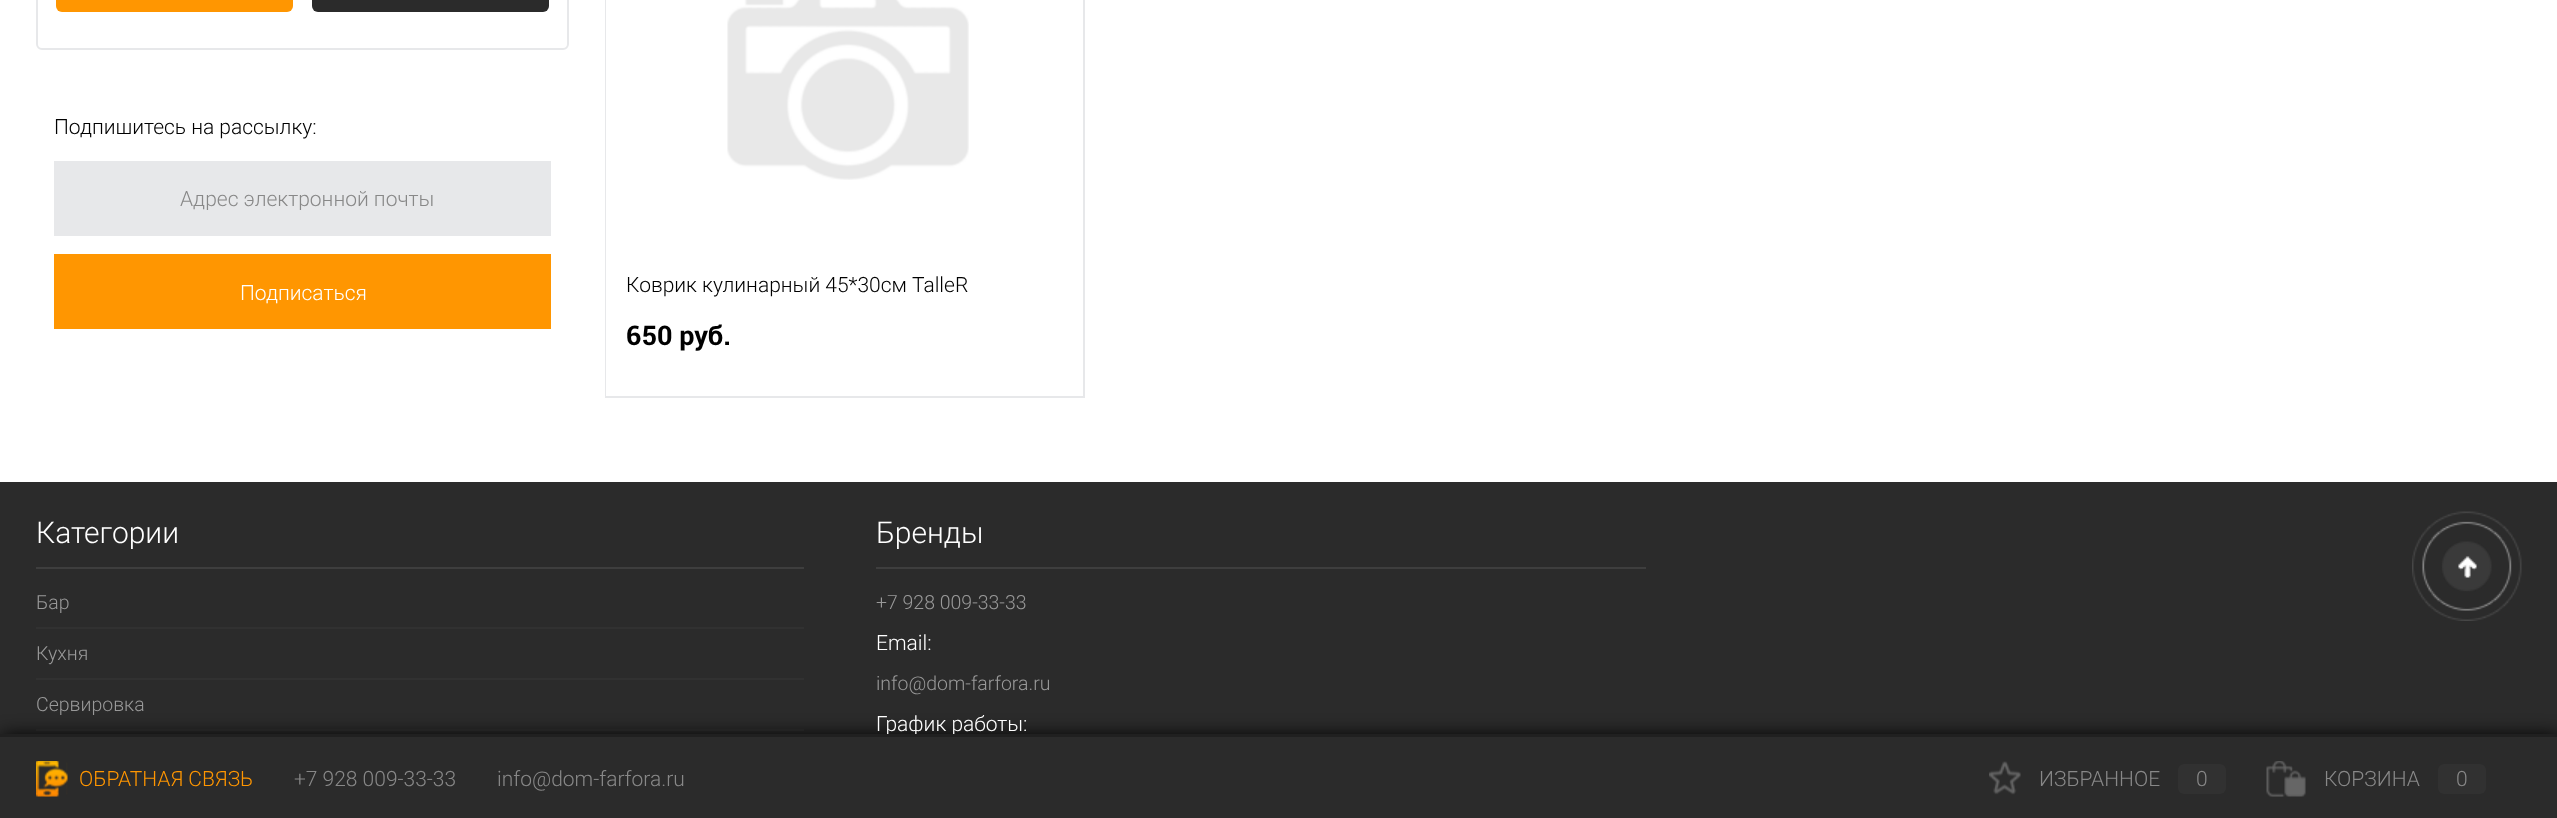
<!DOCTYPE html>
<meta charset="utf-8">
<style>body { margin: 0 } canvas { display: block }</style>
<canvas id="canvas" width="2557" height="818"></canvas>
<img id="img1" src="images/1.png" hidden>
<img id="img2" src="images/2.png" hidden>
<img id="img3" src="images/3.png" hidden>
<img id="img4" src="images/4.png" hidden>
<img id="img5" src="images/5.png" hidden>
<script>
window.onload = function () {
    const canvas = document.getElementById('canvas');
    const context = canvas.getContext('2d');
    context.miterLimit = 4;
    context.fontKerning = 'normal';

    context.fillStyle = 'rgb(255, 255, 255)';
    context.fillRect(0, 0, 2557, 818);
    context.beginPath();
    context.roundRect(37, -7, 531, 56, 5);
    context.strokeStyle = 'rgb(231, 232, 234)';
    context.lineWidth = 2;
    context.stroke();
    context.fillStyle = 'rgb(255, 150, 1)';
    context.beginPath();
    context.roundRect(56, -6, 237, 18, 6);
    context.fill();
    context.fillStyle = 'rgb(43, 43, 43)';
    context.beginPath();
    context.roundRect(312, -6, 237, 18, 6);
    context.fill();
    context.fillStyle = 'rgb(231, 232, 234)';
    context.fillRect(54, 161, 497, 75);
    context.fillStyle = 'rgb(255, 150, 1)';
    context.fillRect(54, 254, 497, 75);
    context.fillStyle = 'rgb(231, 232, 234)';
    context.fillRect(605, 0, 1, 398);
    context.fillRect(1083, 0, 2, 398);
    context.fillRect(606, 396, 479, 2);
    context.drawImage(document.getElementById('img1'), 727, 0, 242, 180);
    context.fillStyle = 'rgb(43, 43, 43)';
    context.fillRect(0, 482, 2557, 252);
    context.fillStyle = 'rgb(62, 62, 62)';
    context.fillRect(36, 567, 768, 2);
    context.fillStyle = 'rgb(49, 49, 49)';
    context.fillRect(36, 627, 768, 2);
    context.fillRect(36, 678, 768, 2);
    context.fillRect(36, 729, 768, 2);
    context.fillStyle = 'rgb(62, 62, 62)';
    context.fillRect(876, 567, 770, 2);
    context.fillStyle = 'rgb(0, 0, 0)';
    context.filter = 'blur(9px)';
    context.beginPath();
    context.rect(2, 735, 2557, 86);
    context.fill();
    context.filter = 'none';
    context.fillStyle = 'rgb(43, 43, 43)';
    context.fillRect(0, 737, 2557, 81);
    context.drawImage(document.getElementById('img2'), 36, 761, 32, 36);
    context.drawImage(document.getElementById('img3'), 1989, 761, 32, 34);
    context.fillStyle = 'rgb(49, 49, 49)';
    context.beginPath();
    context.roundRect(2178, 764, 48, 30, 6);
    context.fill();
    context.drawImage(document.getElementById('img4'), 2266, 761, 40, 36);
    context.beginPath();
    context.roundRect(2438, 764, 48, 30, 6);
    context.fill();
    context.drawImage(document.getElementById('img5'), 2412, 511, 110, 110);
    context.font = '300 21px Roboto';
    context.fillStyle = 'rgb(0, 0, 0)';
    context.fillText('Подпишитесь на рассылку:', 54, 134);
    context.save();
    context.beginPath();
    context.rect(66, 186, 482, 24);
    context.clip();
    context.fillStyle = 'rgb(136, 136, 136)';
    context.fillText('Адрес электронной почты', 180, 206);
    context.restore();
    context.fillStyle = 'rgb(255, 255, 255)';
    context.fillText('Подписаться', 240, 300);
    context.fillStyle = 'rgb(0, 0, 0)';
    context.fillText('Коврик кулинарный 45*30см TalleR', 626, 292);
    context.font = 'bold 27px Roboto';
    context.fillText('650 руб.', 626, 345);
    context.font = '300 30px Roboto';
    context.fillStyle = 'rgb(255, 255, 255)';
    context.fillText('Категории', 36, 543);
    context.font = '300 19.5px Roboto';
    context.fillStyle = 'rgb(153, 153, 153)';
    context.fillText('Бар', 36, 609);
    context.fillText('Кухня', 36, 660);
    context.fillText('Сервировка', 36, 711);
    context.font = '300 30px Roboto';
    context.fillStyle = 'rgb(255, 255, 255)';
    context.fillText('Бренды', 876, 543);
    context.font = '300 19.5px Roboto';
    context.fillStyle = 'rgb(153, 153, 153)';
    context.fillText('+7 928 009-33-33', 876, 609);
    context.font = '300 21px Roboto';
    context.fillStyle = 'rgb(255, 255, 255)';
    context.fillText('Email:', 876, 650);
    context.font = '300 19.5px Roboto';
    context.fillStyle = 'rgb(153, 153, 153)';
    context.fillText('info@dom-farfora.ru', 876, 690);
    context.font = '300 21px Roboto';
    context.fillStyle = 'rgb(255, 255, 255)';
    context.fillText('График работы:', 876, 731);
    context.fillStyle = 'rgb(32, 32, 32)';
    context.fillRect(0, 734, 2557, 3);
    context.fillStyle = 'rgb(255, 150, 1)';
    context.fillText('ОБРАТНАЯ СВЯЗЬ', 79, 786);
    context.fillStyle = 'rgb(136, 136, 136)';
    context.fillText('+7 928 009-33-33', 294, 786);
    context.fillText('info@dom-farfora.ru', 497, 786);
    context.fillText('ИЗБРАННОЕ', 2039, 786);
    context.fillText('0', 2196, 786);
    context.fillText('КОРЗИНА', 2324, 786);
    context.fillText('0', 2456, 786);
};
</script>
